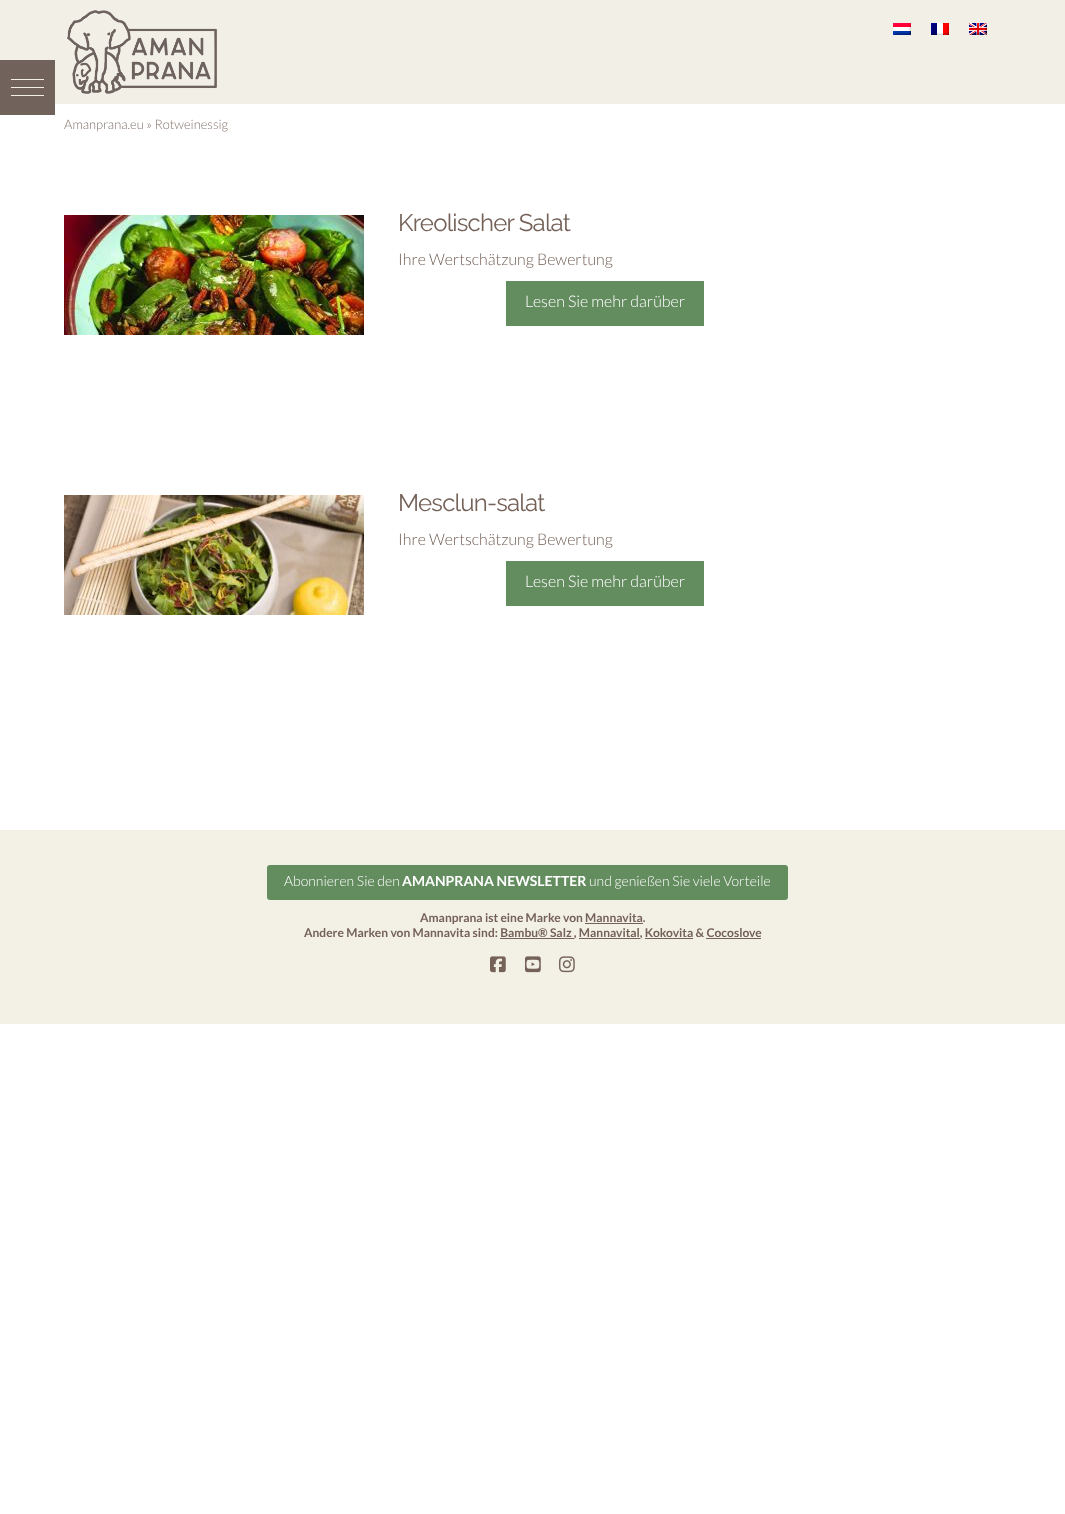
<!DOCTYPE html>
<meta charset="utf-8">
<style>body { margin: 0 } canvas { display: block }</style>
<canvas id="canvas" width="1065" height="1514"></canvas>
<img id="img1" src="images/1.png" hidden>
<img id="img2" src="images/2.png" hidden>
<img id="img3" src="images/3.png" hidden>
<img id="img4" src="images/4.png" hidden>
<img id="img5" src="images/5.png" hidden>
<img id="img6" src="images/6.png" hidden>
<img id="img7" src="images/7.png" hidden>
<img id="img8" src="images/8.png" hidden>
<img id="img9" src="images/9.png" hidden>
<script>
window.onload = function () {
    const canvas = document.getElementById('canvas');
    const context = canvas.getContext('2d');
    context.miterLimit = 4;
    context.fontKerning = 'normal';

    context.fillStyle = 'rgb(255, 255, 255)';
    context.fillRect(0, 0, 1065, 1514);
    context.fillStyle = 'rgb(242, 240, 230)';
    context.fillRect(0, 0, 1065, 104);
    context.drawImage(document.getElementById('img1'), 67, 10, 150, 84);
    context.drawImage(document.getElementById('img2'), 893, 23, 18, 12);
    context.drawImage(document.getElementById('img3'), 931, 23, 18, 12);
    context.drawImage(document.getElementById('img4'), 969, 23, 18, 12);
    context.fillStyle = 'rgb(113, 98, 92)';
    context.fillRect(0, 60, 55, 55);
    context.fillStyle = 'rgb(242, 240, 230)';
    context.fillRect(11, 87, 33, 1);
    context.fillRect(11, 79, 33, 1);
    context.fillRect(11, 95, 33, 1);
    context.drawImage(document.getElementById('img5'), 64, 215, 300, 120);
    context.fillStyle = 'rgb(99, 140, 95)';
    context.fillRect(506, 281, 198, 45);
    context.drawImage(document.getElementById('img6'), 64, 495, 300, 120);
    context.fillRect(506, 561, 198, 45);
    context.fillStyle = 'rgb(243, 240, 230)';
    context.fillRect(0, 830, 1065, 194);
    context.fillStyle = 'rgb(99, 140, 95)';
    context.beginPath();
    context.roundRect(267, 865, 521, 35, 3);
    context.fill();
    context.fillStyle = 'rgb(116, 97, 88)';
    context.fillRect(585, 923, 58, 1);
    context.fillRect(500, 938, 74, 1);
    context.fillRect(579, 938, 61, 1);
    context.fillRect(645, 938, 48, 1);
    context.fillRect(706, 938, 55, 1);
    context.drawImage(document.getElementById('img7'), 490, 956, 16, 17);
    context.drawImage(document.getElementById('img8'), 525, 956, 16, 17);
    context.drawImage(document.getElementById('img9'), 559, 956, 16, 17);
    context.font = '300 13px Lato';
    context.fillStyle = 'rgb(132, 116, 108)';
    context.fillText('Amanprana.eu » Rotweinessig', 64, 129);
    context.letterSpacing = '-0.8px';
    context.font = '24px Raleway';
    context.fillStyle = 'rgb(116, 97, 88)';
    context.fillText('Kreolischer Salat', 398, 231);
    context.letterSpacing = '0px';
    context.font = '300 16px Lato';
    context.fillText('Ihre Wertschätzung Bewertung', 398, 265);
    context.fillStyle = 'rgb(255, 255, 255)';
    context.fillText('Lesen Sie mehr darüber', 525, 307);
    context.letterSpacing = '-0.8px';
    context.font = '24px Raleway';
    context.fillStyle = 'rgb(116, 97, 88)';
    context.fillText('Mesclun-salat', 398, 511);
    context.letterSpacing = '0px';
    context.font = '300 16px Lato';
    context.fillText('Ihre Wertschätzung Bewertung', 398, 545);
    context.fillStyle = 'rgb(255, 255, 255)';
    context.fillText('Lesen Sie mehr darüber', 525, 587);
    context.font = '300 14px Lato';
    context.fillText('Abonnieren Sie den', 284, 886);
    context.font = 'bold 14px Lato';
    context.fillText('AMANPRANA NEWSLETTER', 402, 886);
    context.font = '300 14px Lato';
    context.fillText('und genießen Sie viele Vorteile', 589, 886);
    context.font = 'bold 12px Lato';
    context.fillStyle = 'rgb(116, 97, 88)';
    context.fillText('Amanprana ist eine Marke von Mannavita.', 420, 922);
    context.fillText('Andere Marken von Mannavita sind: Bambu® Salz , Mannavital, Kokovita & Cocoslove', 304, 937);
};
</script>
